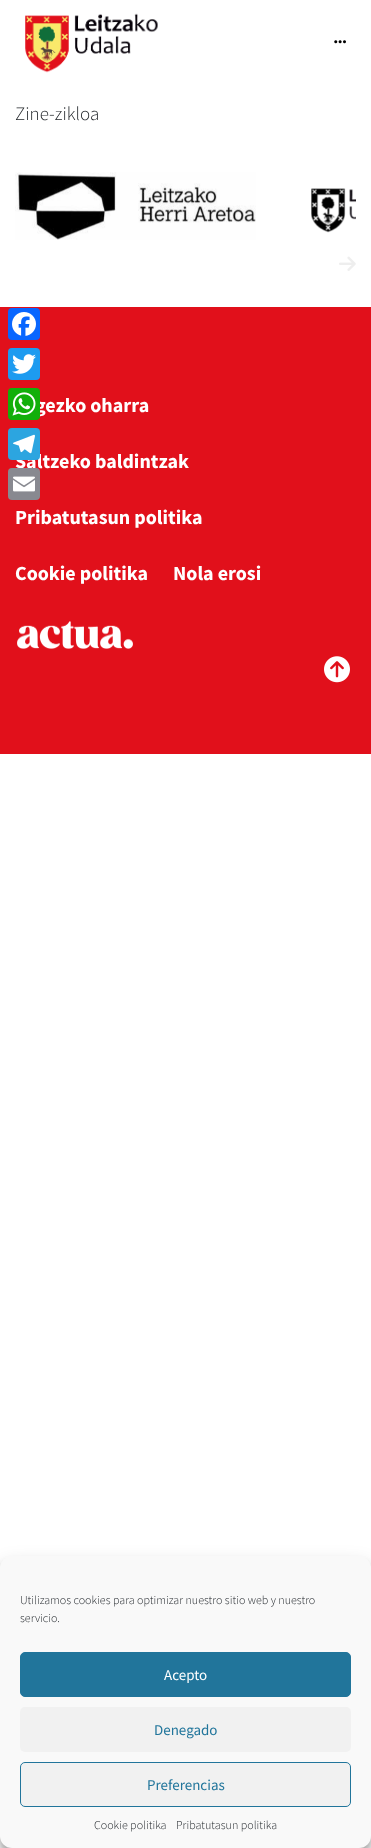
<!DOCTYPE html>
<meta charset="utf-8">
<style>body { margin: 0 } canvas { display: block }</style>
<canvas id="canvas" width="371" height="1848"></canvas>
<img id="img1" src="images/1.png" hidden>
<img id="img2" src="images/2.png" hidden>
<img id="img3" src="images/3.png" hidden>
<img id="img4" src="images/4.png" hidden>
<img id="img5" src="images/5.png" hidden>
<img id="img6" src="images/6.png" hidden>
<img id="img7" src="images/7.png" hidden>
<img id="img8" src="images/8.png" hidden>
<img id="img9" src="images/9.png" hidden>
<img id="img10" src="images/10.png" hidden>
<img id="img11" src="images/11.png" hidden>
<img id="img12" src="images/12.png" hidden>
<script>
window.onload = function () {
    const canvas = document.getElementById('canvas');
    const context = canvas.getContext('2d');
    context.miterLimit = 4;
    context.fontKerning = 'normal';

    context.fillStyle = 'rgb(255, 255, 255)';
    context.fillRect(0, 0, 371, 1848);
    context.drawImage(document.getElementById('img1'), 25, 13, 133, 60);
    context.drawImage(document.getElementById('img2'), 334, 40, 12, 4);
    context.drawImage(document.getElementById('img3'), 15, 172, 241, 68);
    context.drawImage(document.getElementById('img4'), 311, 188, 45, 45);
    context.drawImage(document.getElementById('img5'), 339, 256, 17, 15);
    context.fillStyle = 'rgb(225, 16, 27)';
    context.fillRect(0, 307, 371, 447);
    context.drawImage(document.getElementById('img6'), 17, 621, 116, 28);
    context.drawImage(document.getElementById('img7'), 324, 656, 26, 27);
    context.fillStyle = 'rgb(8, 102, 255)';
    context.beginPath();
    context.roundRect(8, 308, 32, 32, 4);
    context.fill();
    context.drawImage(document.getElementById('img8'), 12, 312, 24, 24);
    context.fillStyle = 'rgb(29, 155, 240)';
    context.beginPath();
    context.roundRect(8, 348, 32, 32, 4);
    context.fill();
    context.drawImage(document.getElementById('img9'), 12, 354, 24, 20);
    context.fillStyle = 'rgba(0, 0, 0, 0.23)';
    context.filter = 'blur(3px)';
    context.beginPath();
    context.roundRect(0, 1562, 371, 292, 12);
    context.fill();
    context.filter = 'none';
    context.fillStyle = 'rgba(0, 0, 0, 0.19)';
    context.filter = 'blur(10px)';
    context.beginPath();
    context.roundRect(0, 1566, 371, 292, 12);
    context.fill();
    context.filter = 'none';
    context.fillStyle = 'rgb(249, 249, 249)';
    context.beginPath();
    context.roundRect(0, 1556, 371, 292, 12);
    context.fill();
    context.fillStyle = 'rgb(33, 117, 155)';
    context.beginPath();
    context.roundRect(20.5, 1652.5, 330, 44, 4.5);
    context.fill();
    context.strokeStyle = 'rgb(33, 117, 155)';
    context.stroke();
    context.fillStyle = 'rgb(241, 241, 241)';
    context.beginPath();
    context.roundRect(20, 1707, 331, 45, 5);
    context.fill();
    context.beginPath();
    context.roundRect(20.5, 1762.5, 330, 44, 4.5);
    context.fill();
    context.stroke();
    context.font = '300 19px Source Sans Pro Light';
    context.fillStyle = 'rgb(33, 37, 41)';
    context.fillText('Zine-zikloa', 15, 120);
    context.font = 'bold 20px Source Sans Pro';
    context.fillStyle = 'rgb(255, 255, 255)';
    context.fillText('gezko oharra', 35, 412);
    context.fillText('Saltzeko baldintzak', 15, 468);
    context.fillText('Pribatutasun politika', 15, 524);
    context.fillText('Cookie politika', 15, 580);
    context.fillText('Nola erosi', 173, 580);
    context.fillStyle = 'rgb(18, 175, 10)';
    context.beginPath();
    context.roundRect(8, 388, 32, 32, 4);
    context.fill();
    context.drawImage(document.getElementById('img10'), 12, 392, 24, 24);
    context.fillStyle = 'rgb(44, 165, 224)';
    context.beginPath();
    context.roundRect(8, 428, 32, 32, 4);
    context.fill();
    context.drawImage(document.getElementById('img11'), 13, 434, 22, 20);
    context.fillStyle = 'rgb(136, 137, 144)';
    context.beginPath();
    context.roundRect(8, 468, 32, 32, 4);
    context.fill();
    context.drawImage(document.getElementById('img12'), 13, 476, 22, 16);
    context.font = '300 12px Source Sans Pro Light';
    context.fillStyle = 'rgb(25, 30, 35)';
    context.fillText('Utilizamos cookies para optimizar nuestro sitio web y nuestro', 20, 1604);
    context.fillText('servicio.', 20, 1622);
    context.font = '15px Source Sans Pro';
    context.fillStyle = 'rgb(255, 255, 255)';
    context.fillText('Acepto', 164, 1680);
    context.fillStyle = 'rgb(33, 117, 155)';
    context.fillText('Denegado', 154, 1735);
    context.fillText('Preferencias', 147, 1790);
    context.font = '300 12px Source Sans Pro Light';
    context.fillStyle = 'rgb(25, 30, 35)';
    context.fillText('Cookie politika', 94, 1829);
    context.fillText('Pribatutasun politika', 176, 1829);
};
</script>
